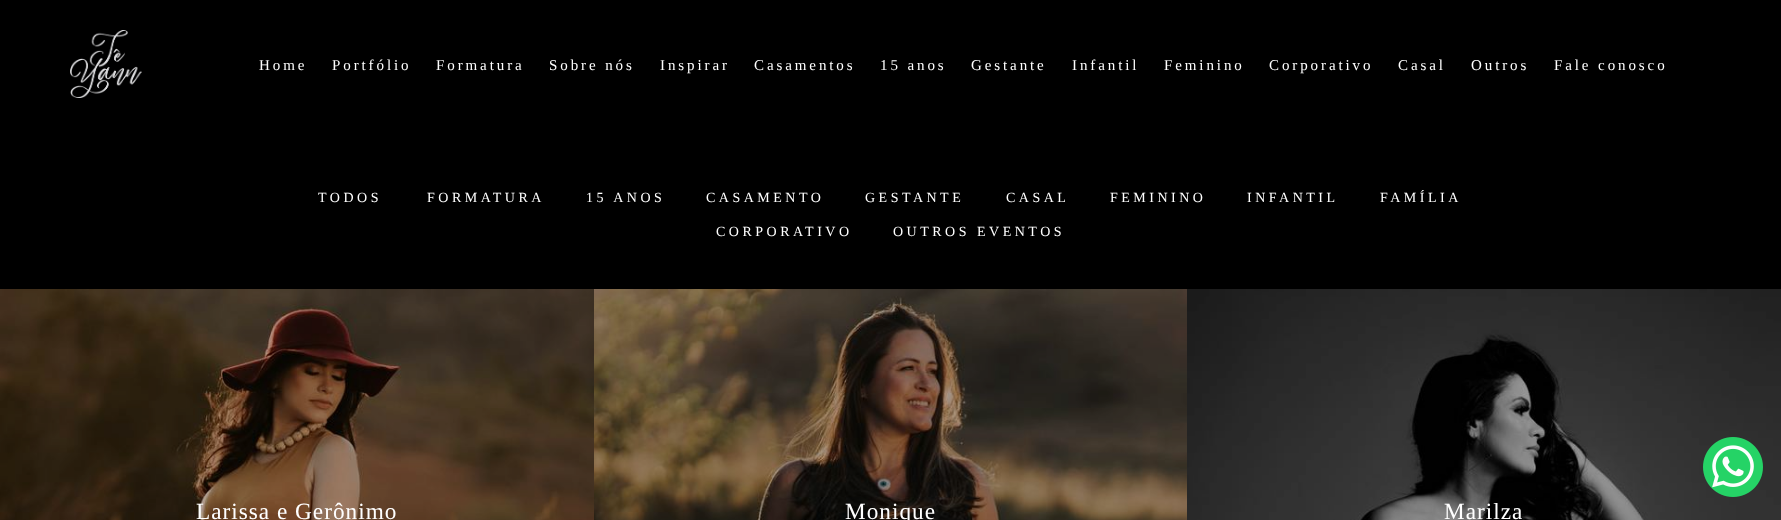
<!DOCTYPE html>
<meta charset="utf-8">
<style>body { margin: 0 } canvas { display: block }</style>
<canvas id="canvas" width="1781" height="520"></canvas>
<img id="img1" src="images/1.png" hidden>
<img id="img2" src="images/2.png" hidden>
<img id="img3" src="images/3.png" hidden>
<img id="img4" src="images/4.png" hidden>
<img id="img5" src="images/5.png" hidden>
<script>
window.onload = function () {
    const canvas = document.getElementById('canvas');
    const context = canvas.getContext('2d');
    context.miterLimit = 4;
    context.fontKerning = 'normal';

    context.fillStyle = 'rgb(0, 0, 0)';
    context.fillRect(0, 0, 1781, 520);
    context.drawImage(document.getElementById('img1'), 70, 30, 72, 68);
    context.drawImage(document.getElementById('img2'), 0, 289, 594, 231);
    context.drawImage(document.getElementById('img3'), 594, 289, 593, 231);
    context.drawImage(document.getElementById('img4'), 1187, 289, 594, 231);
    context.drawImage(document.getElementById('img5'), 1703, 437, 60, 60);
    context.letterSpacing = '2.9px';
    context.font = '15px Liberation Serif';
    context.fillStyle = 'rgb(255, 255, 255)';
    context.fillText('Home', 259, 70);
    context.fillText('Portfólio', 332, 70);
    context.fillText('Formatura', 436, 70);
    context.fillText('Sobre nós', 549, 70);
    context.fillText('Inspirar', 660, 70);
    context.fillText('Casamentos', 754, 70);
    context.fillText('15 anos', 880, 70);
    context.fillText('Gestante', 971, 70);
    context.fillText('Infantil', 1072, 70);
    context.fillText('Feminino', 1164, 70);
    context.fillText('Corporativo', 1269, 70);
    context.fillText('Casal', 1398, 70);
    context.fillText('Outros', 1471, 70);
    context.fillText('Fale conosco', 1554, 70);
    context.letterSpacing = '3.5px';
    context.font = '14px Liberation Serif';
    context.fillText('TODOS', 318, 202);
    context.fillText('FORMATURA', 427, 202);
    context.fillText('15 ANOS', 586, 202);
    context.fillText('CASAMENTO', 706, 202);
    context.fillText('GESTANTE', 865, 202);
    context.fillText('CASAL', 1006, 202);
    context.fillText('FEMININO', 1110, 202);
    context.fillText('INFANTIL', 1247, 202);
    context.fillText('FAMÍLIA', 1380, 202);
    context.fillText('CORPORATIVO', 716, 236);
    context.fillText('OUTROS EVENTOS', 893, 236);
    context.letterSpacing = '1px';
    context.font = '23.25px Liberation Serif';
    context.fillText('Larissa e Gerônimo', 196, 519);
    context.fillText('Monique', 845, 519);
    context.fillText('Marilza', 1444, 519);
};
</script>
